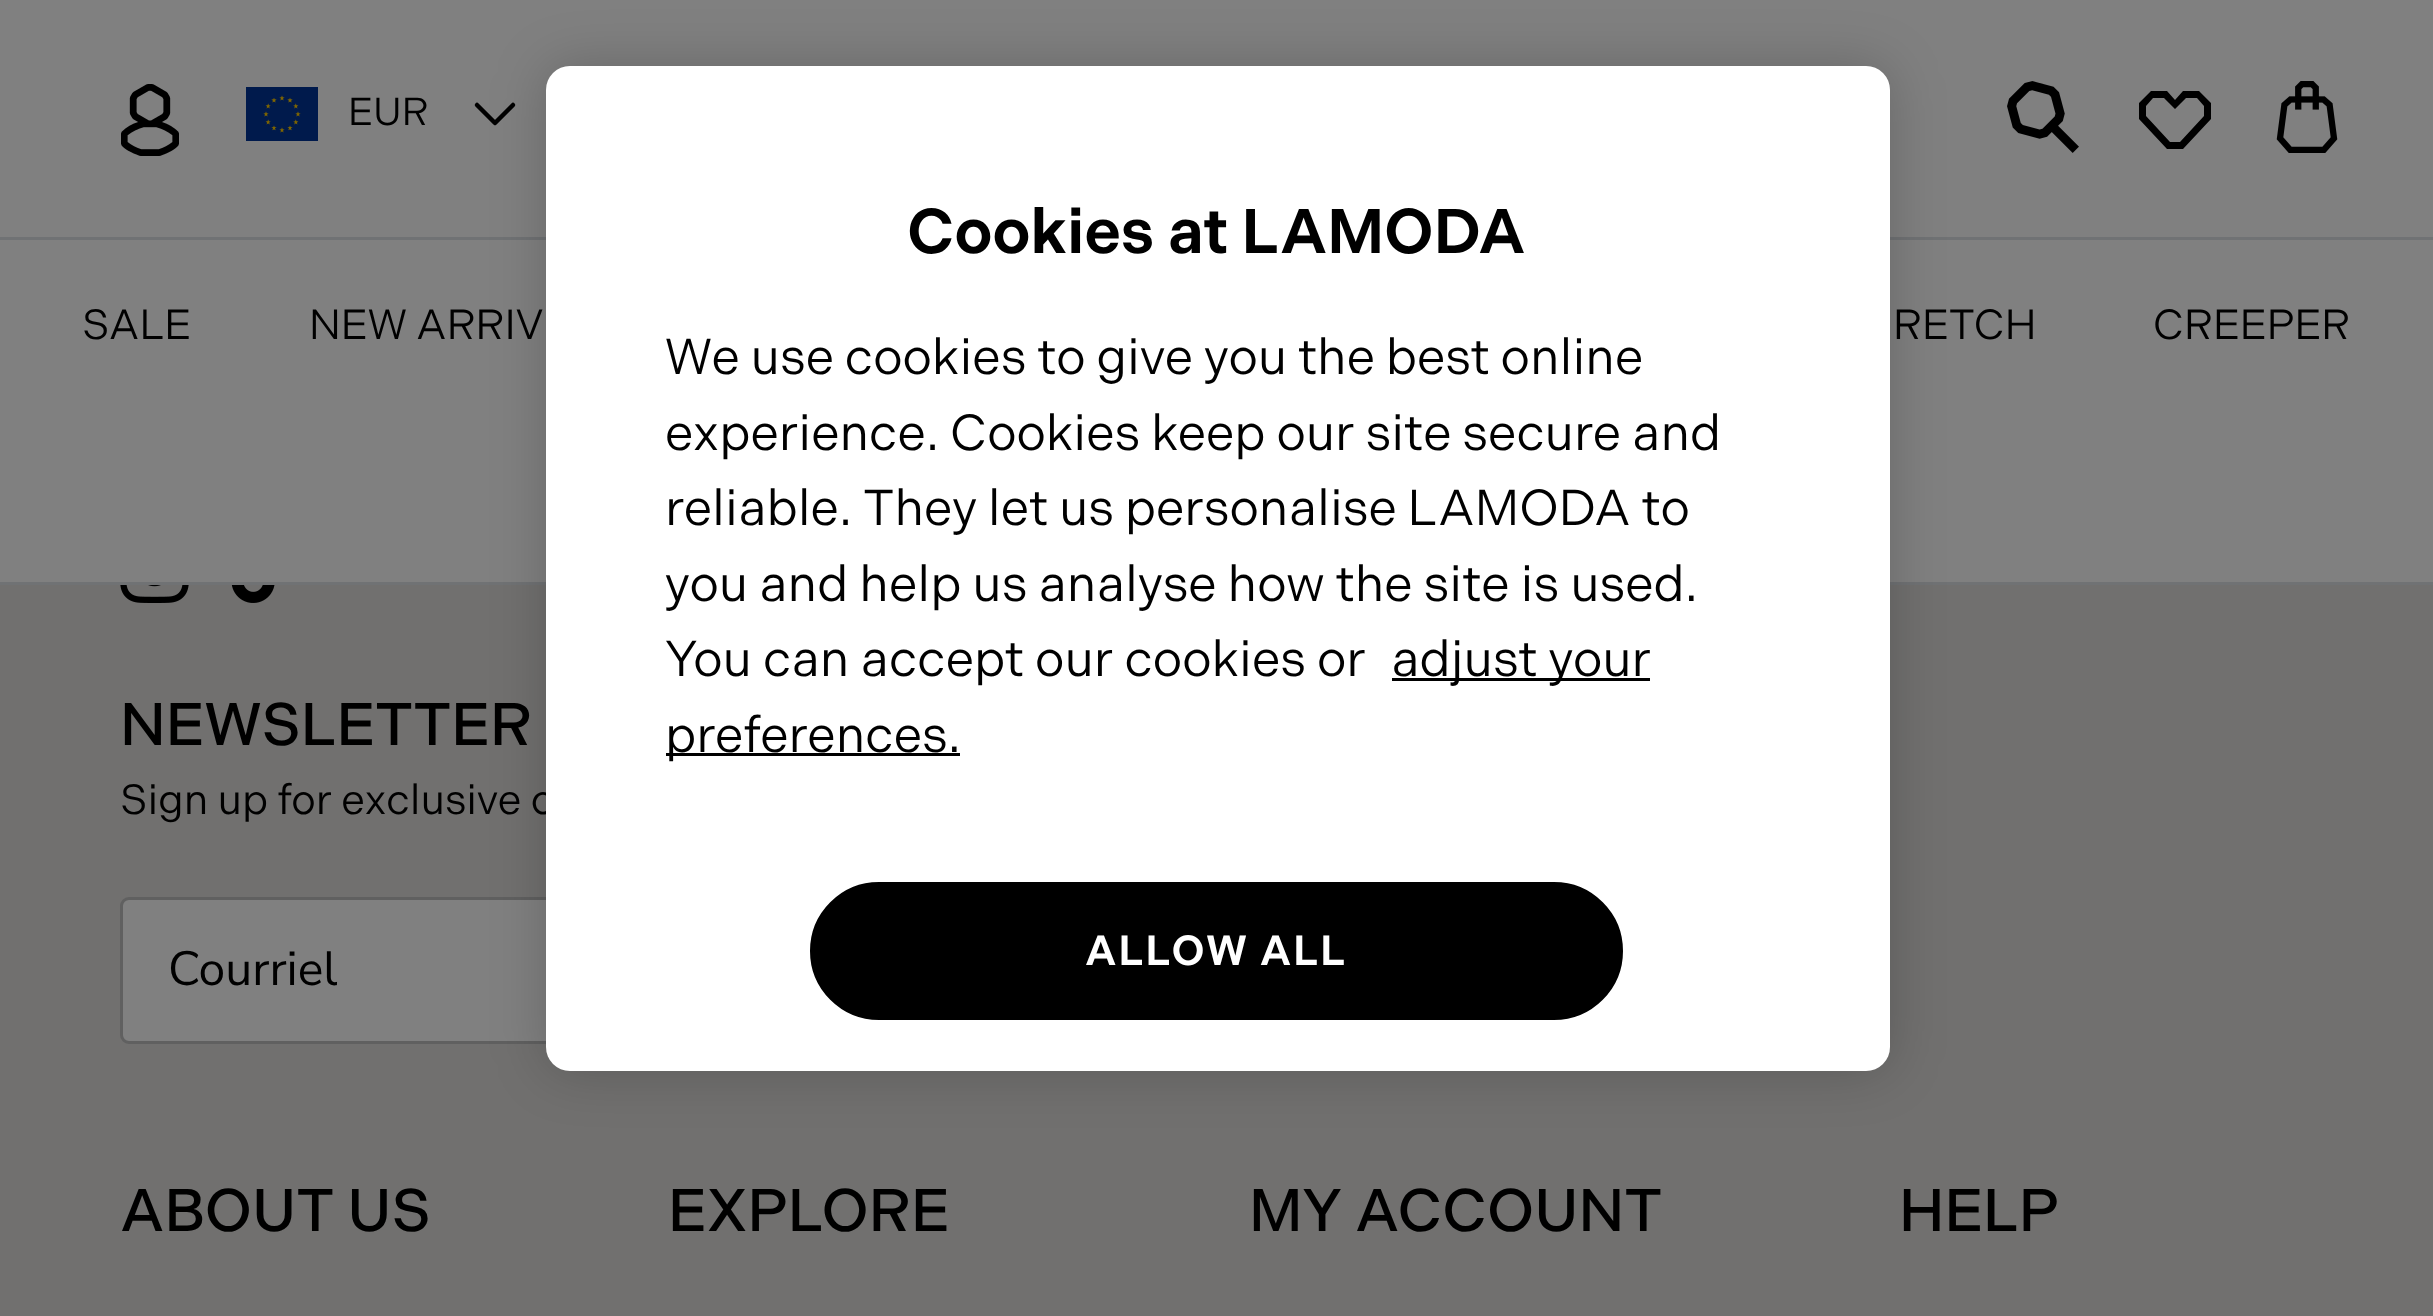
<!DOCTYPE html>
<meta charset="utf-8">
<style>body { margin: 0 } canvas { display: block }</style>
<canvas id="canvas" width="2433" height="1316"></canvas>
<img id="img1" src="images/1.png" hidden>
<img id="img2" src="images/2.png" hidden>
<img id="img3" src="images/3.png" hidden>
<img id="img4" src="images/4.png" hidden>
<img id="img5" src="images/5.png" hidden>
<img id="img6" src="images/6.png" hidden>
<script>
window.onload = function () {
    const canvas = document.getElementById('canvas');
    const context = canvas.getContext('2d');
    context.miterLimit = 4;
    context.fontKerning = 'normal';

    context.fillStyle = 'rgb(113, 112, 111)';
    context.fillRect(0, 0, 2433, 1316);
    context.fillStyle = 'rgb(128, 128, 128)';
    context.fillRect(0, 0, 2433, 237);
    context.fillStyle = 'rgb(112, 114, 116)';
    context.fillRect(0, 237, 2433, 3);
    context.drawImage(document.getElementById('img1'), 121, 84, 58, 72);
    context.drawImage(document.getElementById('img2'), 246, 87, 72, 54);
    context.beginPath();
    context.moveTo(477, 105);
    context.lineTo(495, 123);
    context.lineTo(513, 105);
    context.strokeStyle = 'rgb(0, 0, 0)';
    context.lineWidth = 4.5;
    context.lineCap = 'round';
    context.lineJoin = 'round';
    context.stroke();
    context.drawImage(document.getElementById('img3'), 2007, 81, 72, 72);
    context.fillStyle = 'rgb(0, 0, 0)';
    context.beginPath();
    context.moveTo(2186, 98);
    context.lineTo(2197, 98);
    context.lineTo(2204, 106);
    context.lineTo(2204, 116);
    context.lineTo(2180, 142);
    context.lineTo(2170, 142);
    context.lineTo(2146, 116);
    context.lineTo(2146, 106);
    context.lineTo(2153, 98);
    context.lineTo(2164, 98);
    context.lineTo(2175, 109);
    context.closePath();
    context.moveTo(2183, 91);
    context.lineTo(2175, 100);
    context.lineTo(2167, 91);
    context.lineTo(2151, 91);
    context.lineTo(2139, 103);
    context.lineTo(2139, 119);
    context.lineTo(2167, 149);
    context.lineTo(2183, 149);
    context.lineTo(2211, 119);
    context.lineTo(2211, 103);
    context.lineTo(2199, 91);
    context.closePath();
    context.fill();
    context.drawImage(document.getElementById('img4'), 2276, 81, 62, 72);
    context.fillStyle = 'rgb(112, 114, 116)';
    context.fillRect(0, 582, 2433, 3);
    context.fillStyle = 'rgb(128, 128, 128)';
    context.fillRect(0, 240, 2433, 342);
    context.beginPath();
    context.roundRect(121.5, 898.5, 1029, 144, 7.5);
    context.fill();
    context.strokeStyle = 'rgb(96, 96, 96)';
    context.lineWidth = 3;
    context.lineJoin = 'miter';
    context.stroke();
    context.save();
    context.beginPath();
    context.moveTo(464, 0);
    context.lineTo(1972, 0);
    context.lineTo(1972, 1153);
    context.lineTo(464, 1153);
    context.closePath();
    context.moveTo(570, 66);
    context.lineTo(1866, 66);
    context.bezierCurveTo(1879.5, 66, 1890, 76.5, 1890, 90);
    context.lineTo(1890, 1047);
    context.bezierCurveTo(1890, 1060.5, 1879.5, 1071, 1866, 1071);
    context.lineTo(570, 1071);
    context.bezierCurveTo(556.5, 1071, 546, 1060.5, 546, 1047);
    context.lineTo(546, 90);
    context.bezierCurveTo(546, 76.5, 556.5, 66, 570, 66);
    context.closePath();
    context.clip('evenodd');
    context.fillStyle = 'rgba(0, 0, 0, 0.2)';
    context.filter = 'blur(27px)';
    context.beginPath();
    context.roundRect(546, 66, 1344, 1005, 24);
    context.fill();
    context.filter = 'none';
    context.restore();
    context.drawImage(document.getElementById('img5'), 120, 585, 69, 18);
    context.drawImage(document.getElementById('img6'), 231, 585, 44, 18);
    context.font = '39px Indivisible';
    context.fillStyle = 'rgb(0, 0, 0)';
    context.fillText('EUR', 348, 125);
    context.font = '42px Indivisible';
    context.fillText('SALE', 82, 339);
    context.fillText('NEW ARRIV', 309, 339);
    context.fillText('RETCH', 1893, 339);
    context.fillText('CREEPER', 2153, 339);
    context.font = '500 60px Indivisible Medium';
    context.fillText('NEWSLETTER', 120, 745);
    context.font = '42px Indivisible';
    context.fillText('Sign up for exclusive o', 120, 814);
    context.fillStyle = 'rgb(255, 255, 255)';
    context.beginPath();
    context.roundRect(546, 66, 1344, 1005, 24);
    context.fill();
    context.fillStyle = 'rgb(0, 0, 0)';
    context.beginPath();
    context.roundRect(811.5, 883.5, 810, 135, 67.5);
    context.fill();
    context.strokeStyle = 'rgb(0, 0, 0)';
    context.stroke();
    context.letterSpacing = '2px';
    context.font = '600 42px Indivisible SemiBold';
    context.fillStyle = 'rgb(255, 255, 255)';
    context.fillText('ALLOW ALL', 1085, 965);
    context.fillStyle = 'rgb(0, 0, 0)';
    context.fillRect(666, 753, 294, 3);
    context.letterSpacing = '0px';
    context.font = '50.4px Indivisible';
    context.fillText('preferences.', 665, 752);
    context.fillRect(1392, 678, 258, 3);
    context.fillText('adjust your', 1391, 676);
    context.fillText('You can accept our cookies or', 665, 676);
    context.wordSpacing = '-0.1px';
    context.fillText('you and help us analyse how the site is used.', 665, 601);
    context.wordSpacing = '-0.25px';
    context.fillText('reliable. They let us personalise LAMODA to', 665, 525);
    context.fillText('experience. Cookies keep our site secure and', 665, 450);
    context.fillText('We use cookies to give you the best online', 665, 374);
    context.wordSpacing = '0px';
    context.font = '600 63px Indivisible SemiBold';
    context.fillText('Cookies at LAMODA', 907, 253);
    context.font = '48px Nunito Sans';
    context.fillText('Courriel', 168, 985);
    context.font = '500 60px Indivisible Medium';
    context.fillText('ABOUT US', 120, 1231);
    context.fillText('EXPLORE', 668, 1231);
    context.fillText('MY ACCOUNT', 1249, 1231);
    context.fillText('HELP', 1899, 1231);
};
</script>
